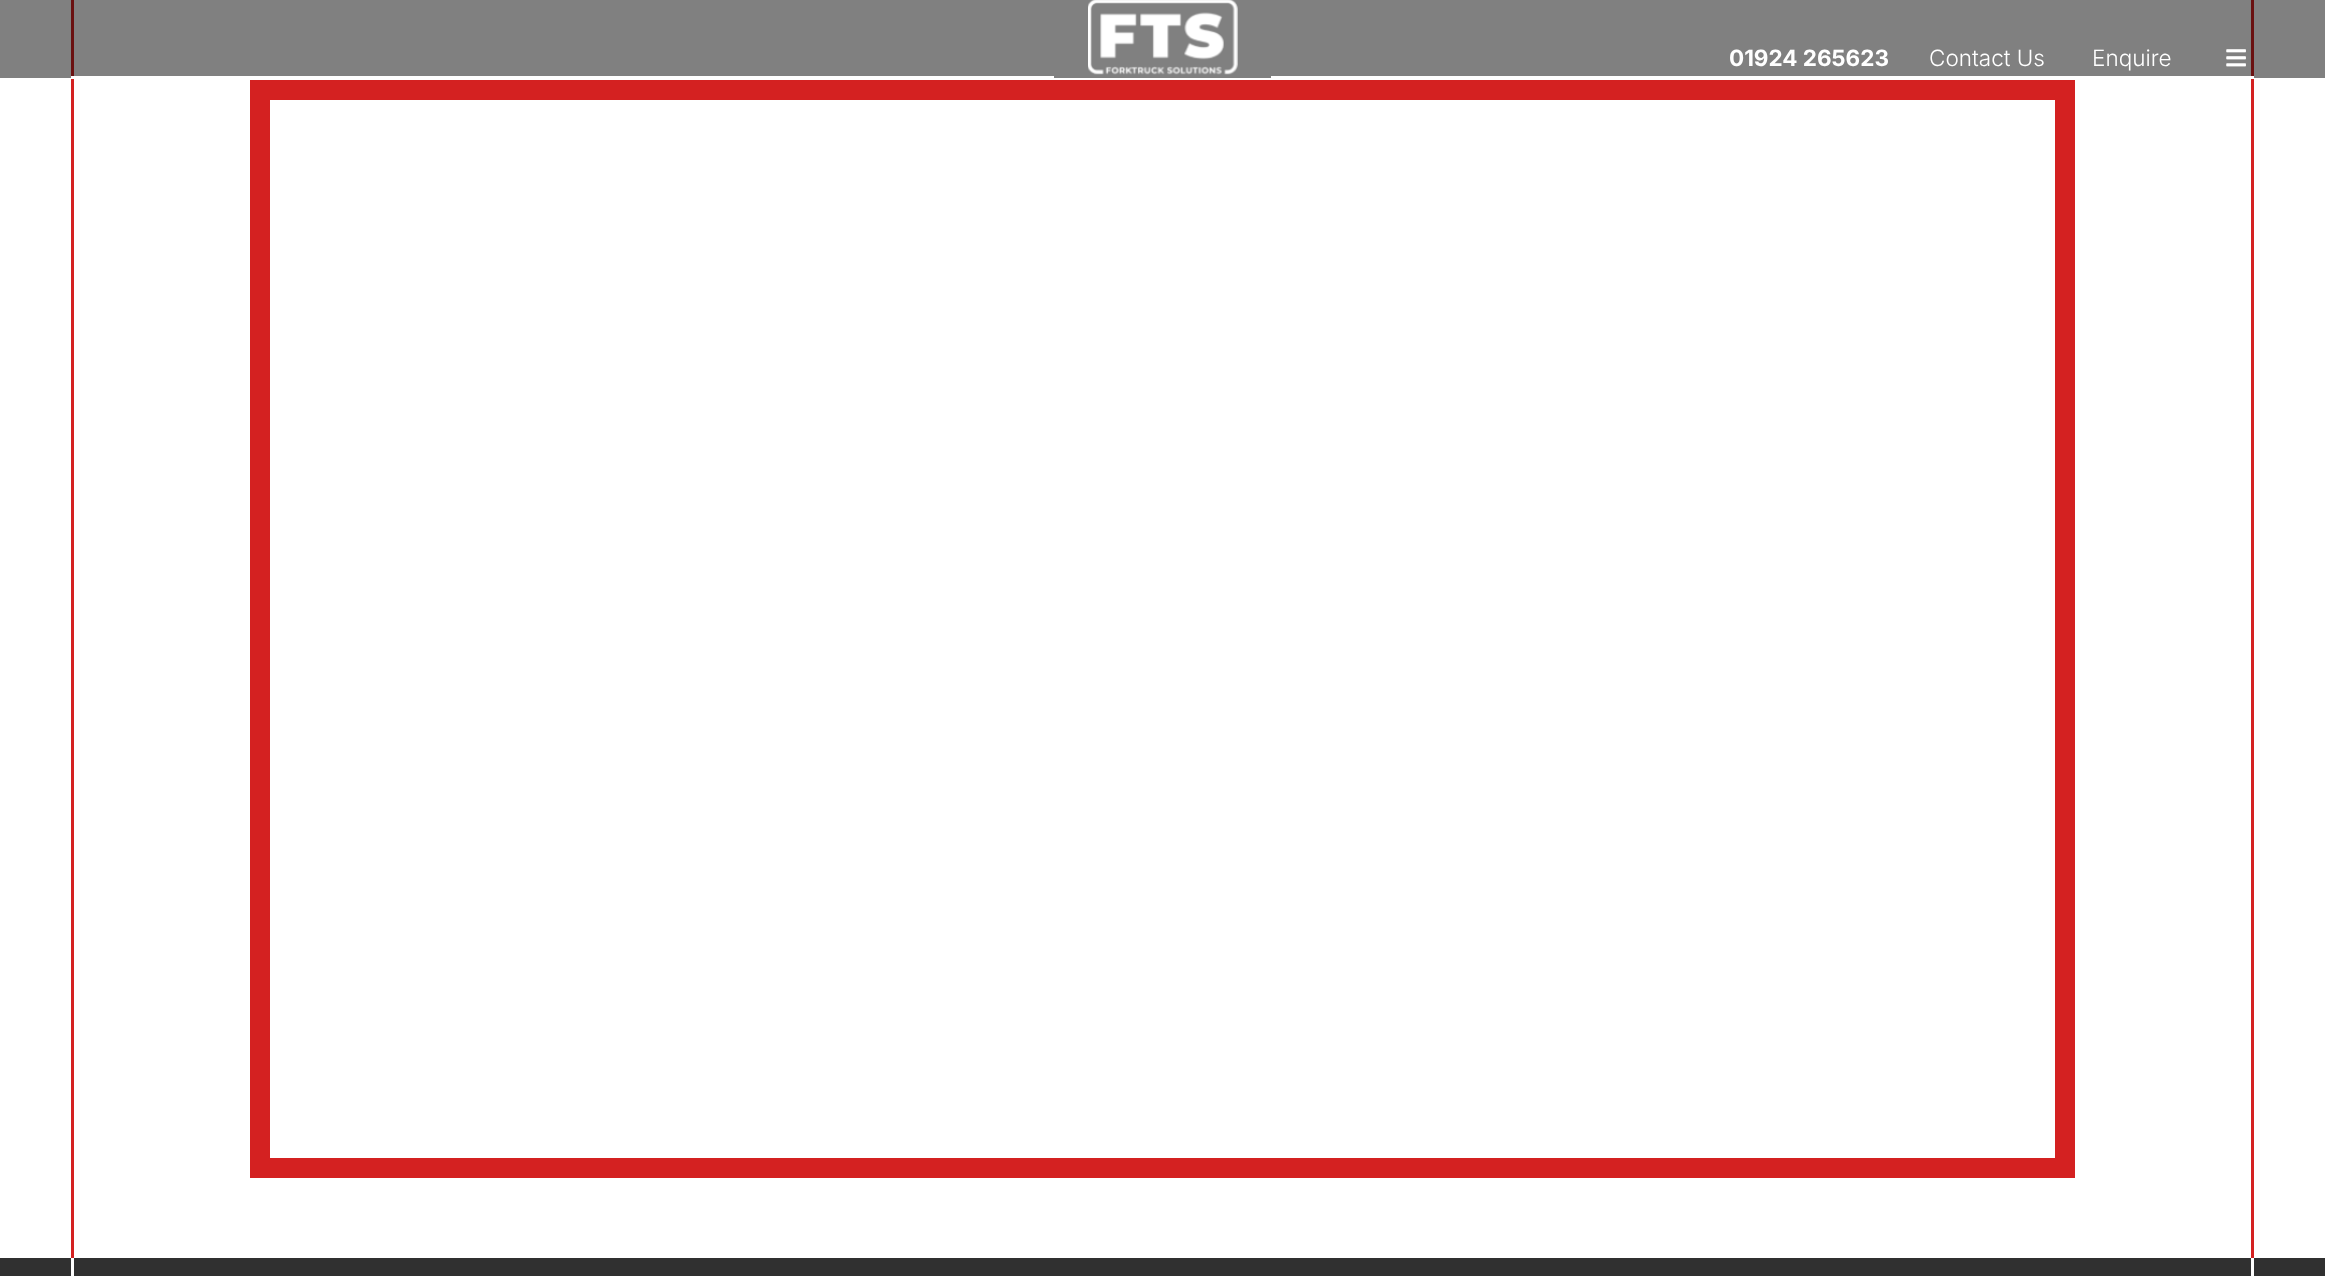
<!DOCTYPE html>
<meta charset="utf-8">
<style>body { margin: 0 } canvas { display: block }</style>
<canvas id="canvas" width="2325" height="1276"></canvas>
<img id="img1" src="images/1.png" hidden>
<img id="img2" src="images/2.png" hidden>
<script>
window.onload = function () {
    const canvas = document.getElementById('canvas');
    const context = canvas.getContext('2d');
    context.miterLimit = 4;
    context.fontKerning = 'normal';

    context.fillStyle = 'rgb(255, 255, 255)';
    context.fillRect(0, 0, 2325, 1276);
    context.fillStyle = 'rgb(128, 128, 128)';
    context.fillRect(0, 0, 2325, 78);
    context.fillStyle = 'rgb(212, 33, 33)';
    context.fillRect(71, 79, 3, 1179);
    context.fillStyle = 'rgb(106, 17, 17)';
    context.fillRect(71, 0, 3, 78);
    context.strokeStyle = 'rgb(212, 33, 33)';
    context.lineWidth = 20;
    context.strokeRect(260, 90, 1805, 1078);
    context.fillStyle = 'rgb(212, 33, 33)';
    context.fillRect(2251, 79, 3, 1179);
    context.fillStyle = 'rgb(106, 17, 17)';
    context.fillRect(2251, 0, 3, 78);
    context.drawImage(document.getElementById('img1'), 1088, 0, 150, 75);
    context.drawImage(document.getElementById('img2'), 2226, 49, 20, 18);
    context.fillStyle = 'rgb(255, 255, 255)';
    context.fillRect(71, 76, 983, 2);
    context.fillRect(1271, 76, 983, 2);
    context.fillStyle = 'rgb(48, 48, 48)';
    context.fillRect(0, 1258, 2325, 18);
    context.fillStyle = 'rgb(255, 255, 255)';
    context.fillRect(71, 1258, 3, 18);
    context.fillRect(2251, 1258, 3, 18);
    context.font = 'bold 22.5px Inter';
    context.fillText('01924 265623', 1729, 66);
    context.font = '300 22.5px Inter';
    context.fillText('Contact Us', 1929, 66);
    context.fillText('Enquire', 2092, 66);
};
</script>
